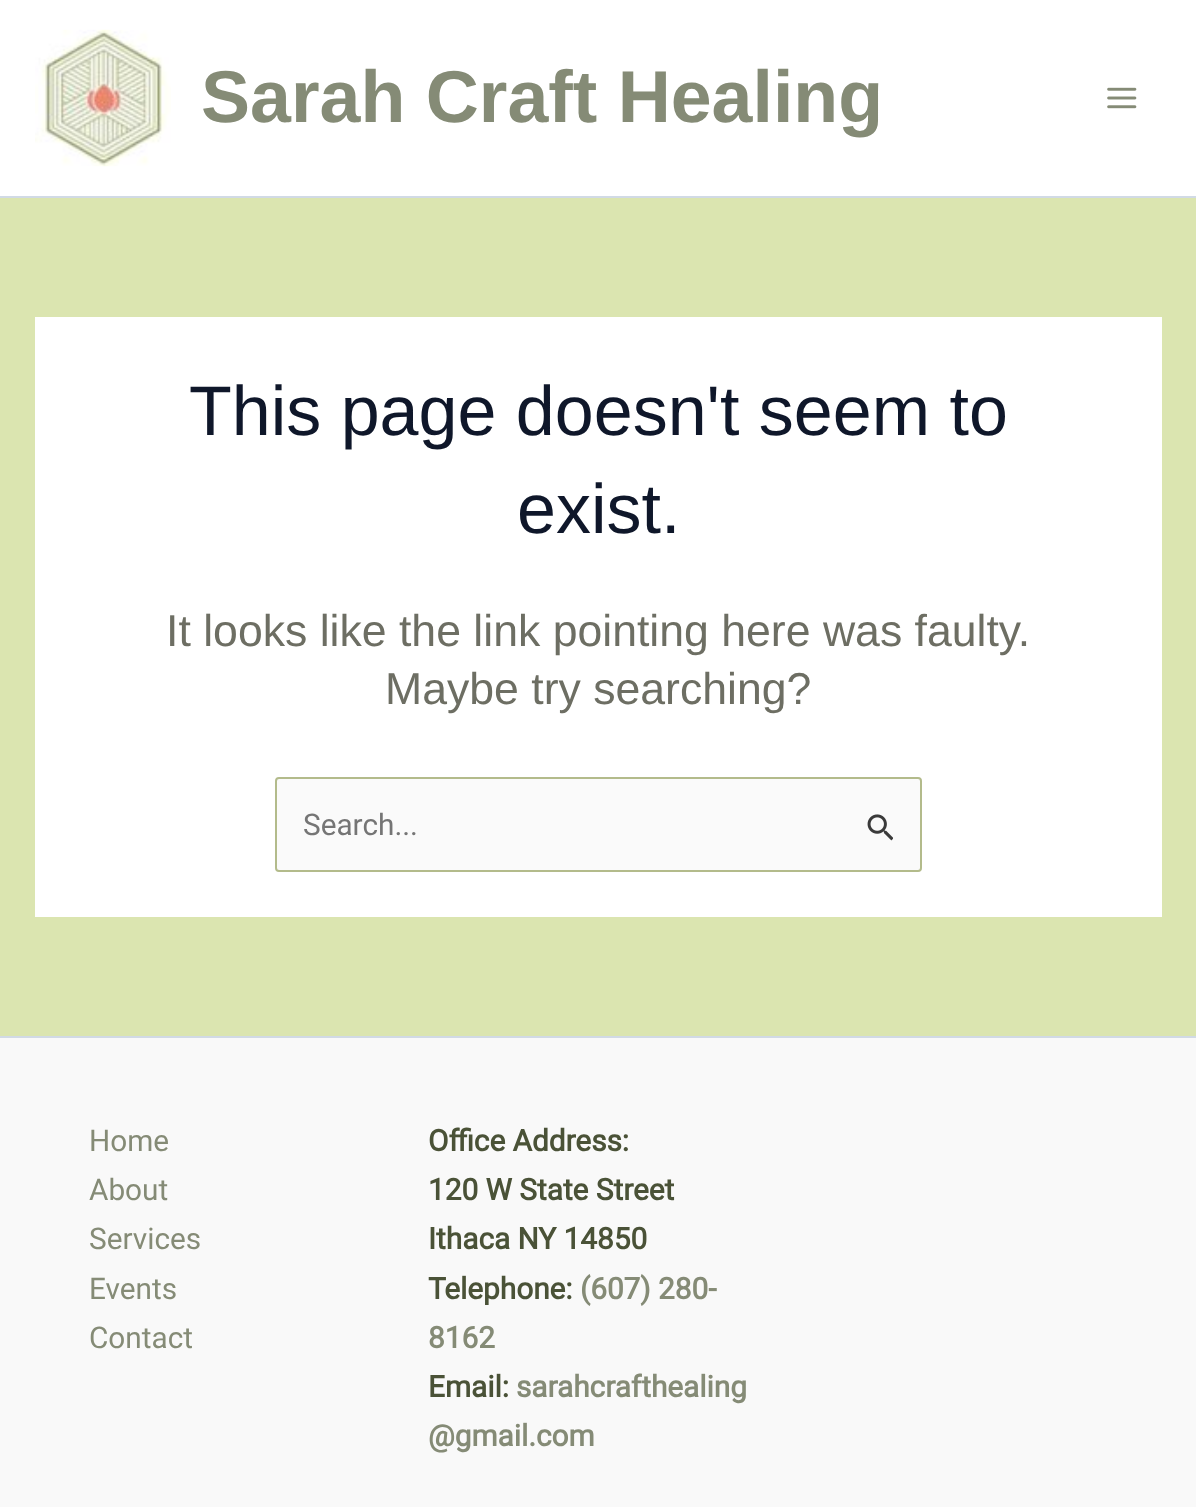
<!DOCTYPE html>
<meta charset="utf-8">
<style>body { margin: 0 } canvas { display: block }</style>
<canvas id="canvas" width="1196" height="1507"></canvas>
<img id="img1" src="images/1.png" hidden>
<img id="img2" src="images/2.png" hidden>
<img id="img3" src="images/3.png" hidden>
<script>
window.onload = function () {
    const canvas = document.getElementById('canvas');
    const context = canvas.getContext('2d');
    context.miterLimit = 4;
    context.fontKerning = 'normal';

    context.fillStyle = 'rgb(219, 229, 176)';
    context.fillRect(0, 0, 1196, 1507);
    context.fillStyle = 'rgb(255, 255, 255)';
    context.fillRect(0, 0, 1196, 196);
    context.fillStyle = 'rgb(209, 218, 229)';
    context.fillRect(0, 196, 1196, 2);
    context.drawImage(document.getElementById('img1'), 35, 29, 136, 138);
    context.drawImage(document.getElementById('img2'), 1107, 87, 30, 22);
    context.fillStyle = 'rgb(255, 255, 255)';
    context.fillRect(35, 317, 1127, 600);
    context.fillStyle = 'rgb(250, 250, 250)';
    context.beginPath();
    context.roundRect(276, 778, 645, 93, 3);
    context.fill();
    context.strokeStyle = 'rgb(179, 187, 139)';
    context.lineWidth = 2;
    context.stroke();
    context.drawImage(document.getElementById('img3'), 867, 814, 26, 27);
    context.fillStyle = 'rgb(249, 249, 249)';
    context.fillRect(0, 1038, 1196, 469);
    context.fillStyle = 'rgb(209, 218, 229)';
    context.fillRect(0, 1036, 1196, 2);
    context.font = 'bold 73.5px Liberation Sans';
    context.fillStyle = 'rgb(133, 139, 118)';
    context.fillText('Sarah Craft Healing', 201, 122);
    context.font = '70px Liberation Sans';
    context.fillStyle = 'rgb(15, 23, 42)';
    context.fillText('This page doesn\'t seem to', 189, 435);
    context.fillText('exist.', 517, 533);
    context.font = '44.6px Liberation Sans';
    context.fillStyle = 'rgb(109, 110, 99)';
    context.fillText('It looks like the link pointing here was faulty.', 166, 646);
    context.fillText('Maybe try searching?', 385, 704);
    context.font = '29.75px Roboto';
    context.fillStyle = 'rgb(117, 117, 117)';
    context.fillText('Search...', 303, 835);
    context.fillStyle = 'rgb(133, 139, 118)';
    context.fillText('Home', 89, 1151);
    context.fillText('About', 89, 1200);
    context.fillText('Services', 89, 1249);
    context.fillText('Events', 89, 1299);
    context.fillText('Contact', 89, 1348);
    context.font = 'bold 29.75px Roboto';
    context.fillStyle = 'rgb(74, 82, 55)';
    context.fillText('Office Address:', 428, 1151);
    context.fillText('120 W State Street', 428, 1200);
    context.fillText('Ithaca NY 14850', 428, 1249);
    context.fillText('Telephone:', 428, 1299);
    context.fillStyle = 'rgb(133, 139, 118)';
    context.fillText('(607) 280-', 580, 1299);
    context.fillText('8162', 428, 1348);
    context.fillStyle = 'rgb(74, 82, 55)';
    context.fillText('Email:', 428, 1397);
    context.fillStyle = 'rgb(133, 139, 118)';
    context.fillText('sarahcrafthealing', 516, 1397);
    context.fillText('@gmail.com', 428, 1446);
};
</script>
